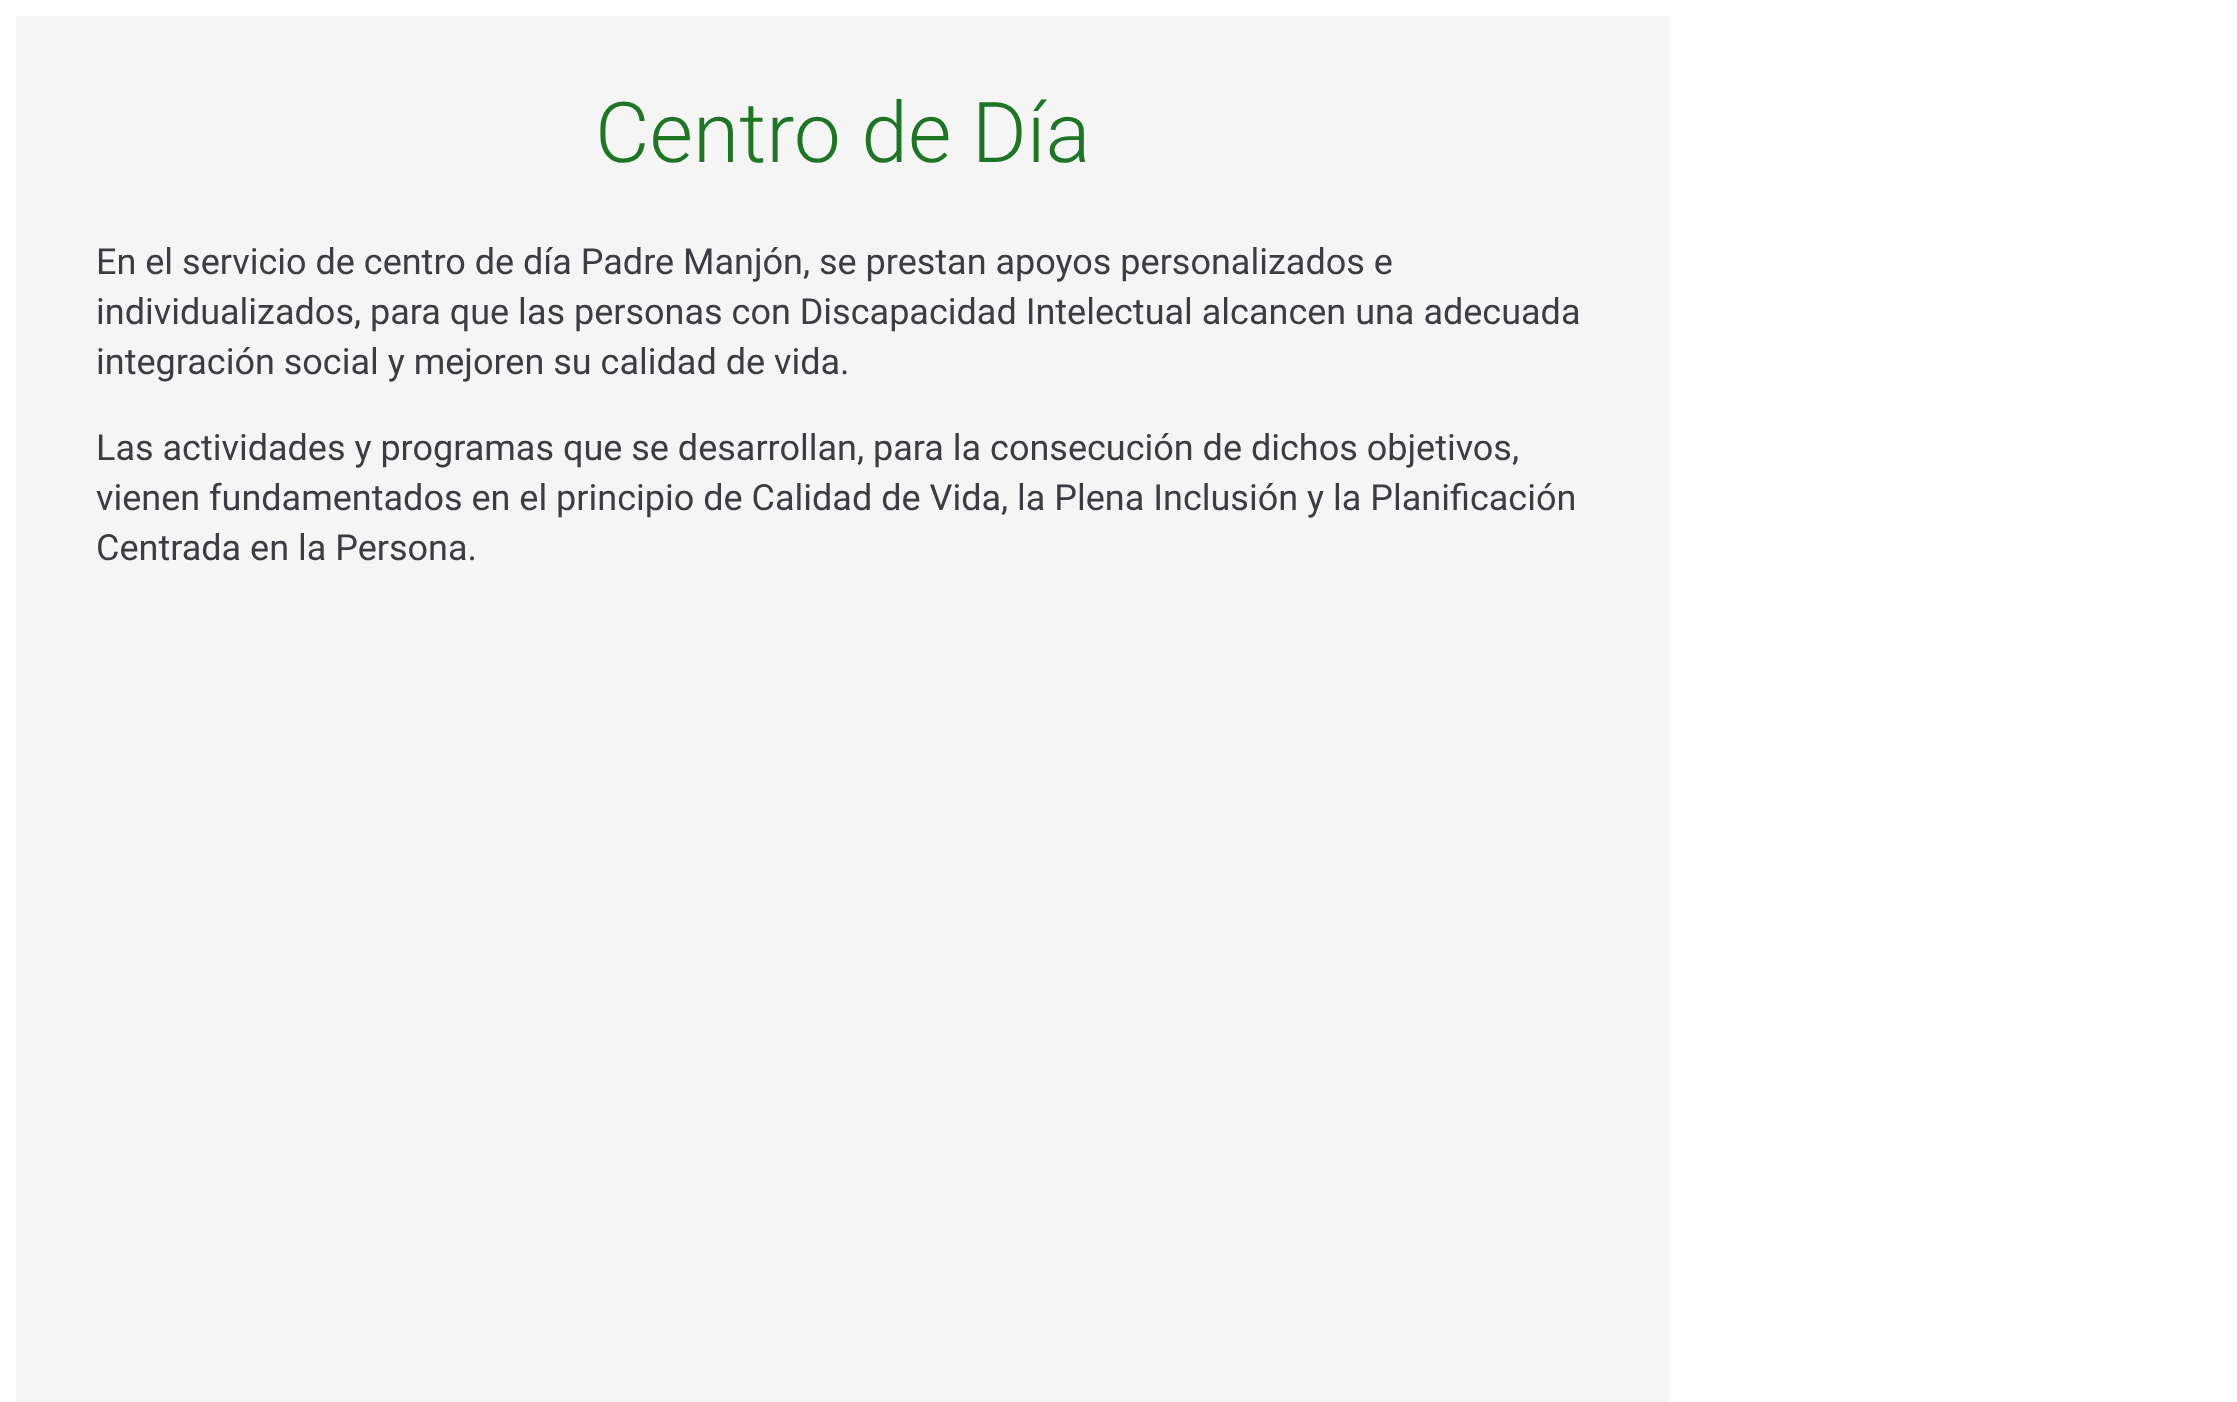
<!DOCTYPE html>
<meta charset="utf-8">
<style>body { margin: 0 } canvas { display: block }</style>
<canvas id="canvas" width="2237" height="1402"></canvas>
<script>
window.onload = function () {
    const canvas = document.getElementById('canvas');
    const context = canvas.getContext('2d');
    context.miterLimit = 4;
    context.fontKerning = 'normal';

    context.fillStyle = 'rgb(255, 255, 255)';
    context.fillRect(0, 0, 2237, 1402);
    context.fillStyle = 'rgb(245, 245, 245)';
    context.fillRect(16, 16, 1654, 1386);
    context.font = '300 84px Roboto';
    context.fillStyle = 'rgb(30, 117, 38)';
    context.fillText('Centro de Día', 595, 162);
    context.font = '36px Roboto';
    context.fillStyle = 'rgb(59, 61, 66)';
    context.fillText('En el servicio de centro de día Padre Manjón, se prestan apoyos personalizados e', 96, 274);
    context.fillText('individualizados, para que las personas con Discapacidad Intelectual alcancen una adecuada', 96, 324);
    context.fillText('integración social y mejoren su calidad de vida.', 96, 374);
    context.fillText('Las actividades y programas que se desarrollan, para la consecución de dichos objetivos,', 96, 460);
    context.fillText('vienen fundamentados en el principio de Calidad de Vida, la Plena Inclusión y la Planificación', 96, 510);
    context.fillText('Centrada en la Persona.', 96, 560);
};
</script>
